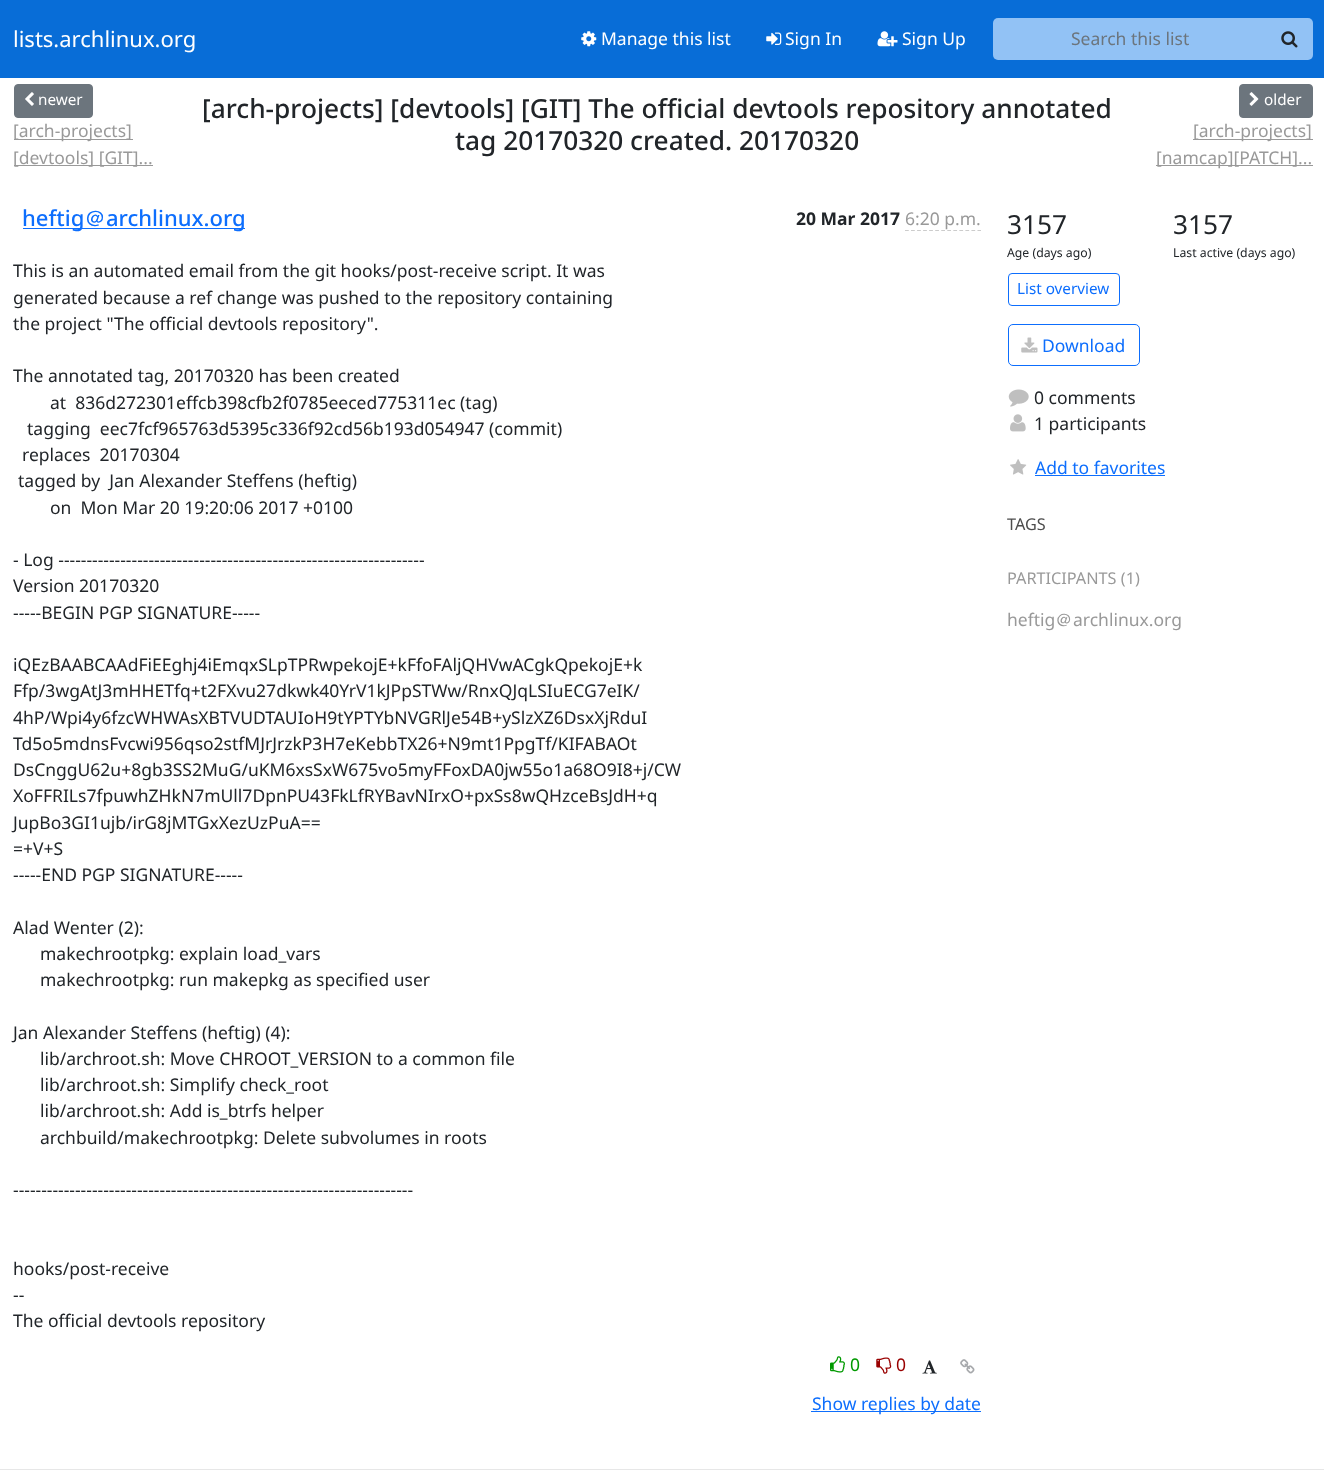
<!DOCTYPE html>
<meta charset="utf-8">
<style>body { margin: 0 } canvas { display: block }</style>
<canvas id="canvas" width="1324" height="1470"></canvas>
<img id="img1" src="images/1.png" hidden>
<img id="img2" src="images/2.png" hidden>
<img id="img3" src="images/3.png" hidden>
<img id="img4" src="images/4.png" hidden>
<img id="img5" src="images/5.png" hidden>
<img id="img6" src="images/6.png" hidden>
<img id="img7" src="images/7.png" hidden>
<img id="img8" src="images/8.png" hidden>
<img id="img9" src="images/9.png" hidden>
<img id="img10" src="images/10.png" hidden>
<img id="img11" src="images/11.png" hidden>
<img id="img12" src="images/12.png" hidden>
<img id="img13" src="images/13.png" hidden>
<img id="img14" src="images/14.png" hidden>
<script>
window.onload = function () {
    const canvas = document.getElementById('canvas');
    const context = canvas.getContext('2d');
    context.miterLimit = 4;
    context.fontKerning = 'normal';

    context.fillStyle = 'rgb(255, 255, 255)';
    context.fillRect(0, 0, 1324, 1470);
    context.fillStyle = 'rgb(8, 109, 215)';
    context.fillRect(0, 0, 1324, 78);
    context.drawImage(document.getElementById('img1'), 581, 31, 16, 16);
    context.drawImage(document.getElementById('img2'), 766, 32, 16, 13);
    context.drawImage(document.getElementById('img3'), 877, 31, 21, 16);
    context.fillStyle = 'rgb(146, 194, 245)';
    context.beginPath();
    context.roundRect(993, 18, 276, 42, [5, 0, 0, 5]);
    context.fill();
    context.beginPath();
    context.roundRect(1268, 18, 45, 42, [0, 5, 5, 0]);
    context.fill();
    context.drawImage(document.getElementById('img4'), 1281, 31, 17, 17);
    context.fillStyle = 'rgb(108, 117, 125)';
    context.beginPath();
    context.roundRect(14.5, 84.5, 78, 33, 3.5);
    context.fill();
    context.strokeStyle = 'rgb(108, 117, 125)';
    context.stroke();
    context.drawImage(document.getElementById('img5'), 25, 92, 9, 14);
    context.fillStyle = 'rgb(153, 153, 153)';
    context.fillRect(14, 139, 119, 1);
    context.fillRect(14, 165, 139, 1);
    context.fillStyle = 'rgb(108, 117, 125)';
    context.beginPath();
    context.roundRect(1239.5, 84.5, 73, 33, 3.5);
    context.fill();
    context.stroke();
    context.drawImage(document.getElementById('img6'), 1249, 92, 10, 14);
    context.fillStyle = 'rgb(153, 153, 153)';
    context.fillRect(1193, 139, 120, 1);
    context.fillRect(1156, 165, 157, 1);
    context.fillStyle = 'rgb(13, 110, 253)';
    context.fillRect(23, 228, 222, 1);
    context.beginPath();
    context.moveTo(905, 230.5);
    context.lineTo(981, 230.5);
    context.strokeStyle = 'rgb(204, 204, 204)';
    context.lineWidth = 1.2;
    context.setLineDash([3.75, 2.29]);
    context.stroke();
    context.drawImage(document.getElementById('img7'), 830, 1356, 15, 17);
    context.drawImage(document.getElementById('img8'), 876, 1357, 16, 17);
    context.drawImage(document.getElementById('img9'), 922, 1360, 15, 14);
    context.drawImage(document.getElementById('img10'), 960, 1359, 15, 15);
    context.fillRect(811, 1411, 170, 1);
    context.beginPath();
    context.roundRect(1008.5, 273.5, 111, 32, 3.5);
    context.strokeStyle = 'rgb(13, 110, 253)';
    context.lineWidth = 1;
    context.setLineDash([]);
    context.stroke();
    context.beginPath();
    context.roundRect(1008.5, 324.5, 131, 41, 4.5);
    context.stroke();
    context.drawImage(document.getElementById('img11'), 1021, 337, 17, 16);
    context.drawImage(document.getElementById('img12'), 1008, 389, 21, 18);
    context.drawImage(document.getElementById('img13'), 1010, 414, 16, 18);
    context.drawImage(document.getElementById('img14'), 1010, 459, 17, 16);
    context.fillRect(1035, 475, 130, 1);
    context.fillStyle = 'rgb(231, 231, 231)';
    context.fillRect(0, 1469, 1324, 1);
    context.font = '22px Noto Sans';
    context.fillStyle = 'rgb(255, 255, 255)';
    context.fillText('lists.archlinux.org', 13, 47);
    context.font = '17.5px Noto Sans';
    context.fillText('Manage this list', 601, 45);
    context.fillText('Sign In', 785, 45);
    context.fillText('Sign Up', 902, 45);
    context.fillStyle = 'rgb(108, 117, 125)';
    context.fillText('Search this list', 1071, 45);
    context.font = '15.25px Noto Sans';
    context.fillStyle = 'rgb(255, 255, 255)';
    context.fillText('newer', 38, 105);
    context.font = '17.5px Noto Sans';
    context.fillStyle = 'rgb(153, 153, 153)';
    context.fillText('[arch-projects]', 13, 137);
    context.fillText('[devtools] [GIT]...', 13, 164);
    context.font = '500 26.25px Noto Sans';
    context.fillStyle = 'rgb(33, 37, 41)';
    context.fillText('[arch-projects] [devtools] [GIT] The official devtools repository annotated', 202, 118);
    context.fillText('tag 20170320 created. 20170320', 455, 150);
    context.font = '15.25px Noto Sans';
    context.fillStyle = 'rgb(255, 255, 255)';
    context.fillText('older', 1264, 105);
    context.font = '17.5px Noto Sans';
    context.fillStyle = 'rgb(153, 153, 153)';
    context.fillText('[arch-projects]', 1193, 137);
    context.fillText('[namcap][PATCH]...', 1156, 164);
    context.font = '500 22px Noto Sans';
    context.fillStyle = 'rgb(13, 110, 253)';
    context.fillText('heftig', 22, 226);
    context.font = '500 22px WenQuanYi Zen Hei';
    context.fillText('＠', 84, 226);
    context.font = '500 22px Noto Sans';
    context.fillText('archlinux.org', 106, 226);
    context.font = 'bold 17.5px Noto Sans';
    context.fillStyle = 'rgb(33, 37, 41)';
    context.fillText('20 Mar 2017', 796, 225);
    context.font = '17.5px Noto Sans';
    context.fillStyle = 'rgb(153, 153, 153)';
    context.fillText('6:20 p.m.', 905, 225);
    context.fillStyle = 'rgb(33, 37, 41)';
    context.fillText('This is an automated email from the git hooks/post-receive script. It was', 13, 277);
    context.fillText('generated because a ref change was pushed to the repository containing', 13, 304);
    context.fillText('the project "The official devtools repository".', 13, 330);
    context.fillText('The annotated tag, 20170320 has been created', 13, 382);
    context.fillText('at  836d272301effcb398cfb2f0785eeced775311ec (tag)', 50, 409);
    context.fillText('tagging  eec7fcf965763d5395c336f92cd56b193d054947 (commit)', 27, 435);
    context.fillText('replaces  20170304', 22, 461);
    context.fillText('tagged by  Jan Alexander Steffens (heftig)', 18, 487);
    context.fillText('on  Mon Mar 20 19:20:06 2017 +0100', 50, 514);
    context.fillText('- Log -----------------------------------------------------------------', 13, 566);
    context.fillText('Version 20170320', 13, 592);
    context.fillText('-----BEGIN PGP SIGNATURE-----', 13, 619);
    context.fillText('iQEzBAABCAAdFiEEghj4iEmqxSLpTPRwpekojE+kFfoFAljQHVwACgkQpekojE+k', 13, 671);
    context.fillText('Ffp/3wgAtJ3mHHETfq+t2FXvu27dkwk40YrV1kJPpSTWw/RnxQJqLSIuECG7eIK/', 13, 697);
    context.fillText('4hP/Wpi4y6fzcWHWAsXBTVUDTAUIoH9tYPTYbNVGRlJe54B+ySlzXZ6DsxXjRduI', 13, 724);
    context.fillText('Td5o5mdnsFvcwi956qso2stfMJrJrzkP3H7eKebbTX26+N9mt1PpgTf/KIFABAOt', 13, 750);
    context.fillText('DsCnggU62u+8gb3SS2MuG/uKM6xsSxW675vo5myFFoxDA0jw55o1a68O9I8+j/CW', 13, 776);
    context.fillText('XoFFRILs7fpuwhZHkN7mUll7DpnPU43FkLfRYBavNIrxO+pxSs8wQHzceBsJdH+q', 13, 802);
    context.fillText('JupBo3GI1ujb/irG8jMTGxXezUzPuA==', 13, 829);
    context.fillText('=+V+S', 13, 855);
    context.fillText('-----END PGP SIGNATURE-----', 13, 881);
    context.fillText('Alad Wenter (2):', 13, 934);
    context.fillText('makechrootpkg: explain load_vars', 40, 960);
    context.fillText('makechrootpkg: run makepkg as specified user', 40, 986);
    context.fillText('Jan Alexander Steffens (heftig) (4):', 13, 1039);
    context.fillText('lib/archroot.sh: Move CHROOT_VERSION to a common file', 40, 1065);
    context.fillText('lib/archroot.sh: Simplify check_root', 40, 1091);
    context.fillText('lib/archroot.sh: Add is_btrfs helper', 40, 1117);
    context.fillText('archbuild/makechrootpkg: Delete subvolumes in roots', 40, 1144);
    context.fillText('-----------------------------------------------------------------------', 13, 1196);
    context.fillText('hooks/post-receive', 13, 1275);
    context.fillText('--', 13, 1301);
    context.fillText('The official devtools repository', 13, 1327);
    context.fillStyle = 'rgb(0, 153, 0)';
    context.fillText('0', 850, 1371);
    context.fillStyle = 'rgb(153, 0, 0)';
    context.fillText('0', 896, 1371);
    context.fillStyle = 'rgb(13, 110, 253)';
    context.fillText('Show replies by date', 812, 1410);
    context.font = '26.25px Noto Sans';
    context.fillStyle = 'rgb(33, 37, 41)';
    context.fillText('3157', 1007, 234);
    context.font = '12.25px Noto Sans';
    context.fillText('Age (days ago)', 1007, 257);
    context.font = '26.25px Noto Sans';
    context.fillText('3157', 1173, 234);
    context.font = '12.25px Noto Sans';
    context.fillText('Last active (days ago)', 1173, 257);
    context.font = '15.25px Noto Sans';
    context.fillStyle = 'rgb(13, 110, 253)';
    context.fillText('List overview', 1017, 294);
    context.font = '17.5px Noto Sans';
    context.fillText('Download', 1042, 352);
    context.fillStyle = 'rgb(33, 37, 41)';
    context.fillText('0 comments', 1034, 404);
    context.fillText('1 participants', 1034, 430);
    context.fillStyle = 'rgb(13, 110, 253)';
    context.fillText('Add to favorites', 1035, 474);
    context.font = '16.25px Noto Sans';
    context.fillStyle = 'rgb(77, 77, 77)';
    context.fillText('TAGS', 1007, 530);
    context.fillStyle = 'rgb(153, 153, 153)';
    context.fillText('PARTICIPANTS (1)', 1007, 584);
    context.font = '17.5px Noto Sans';
    context.fillText('heftig', 1007, 626);
    context.font = '500 17.5px WenQuanYi Zen Hei';
    context.fillText('＠', 1055, 626);
    context.font = '17.5px Noto Sans';
    context.fillText('archlinux.org', 1073, 626);
};
</script>
